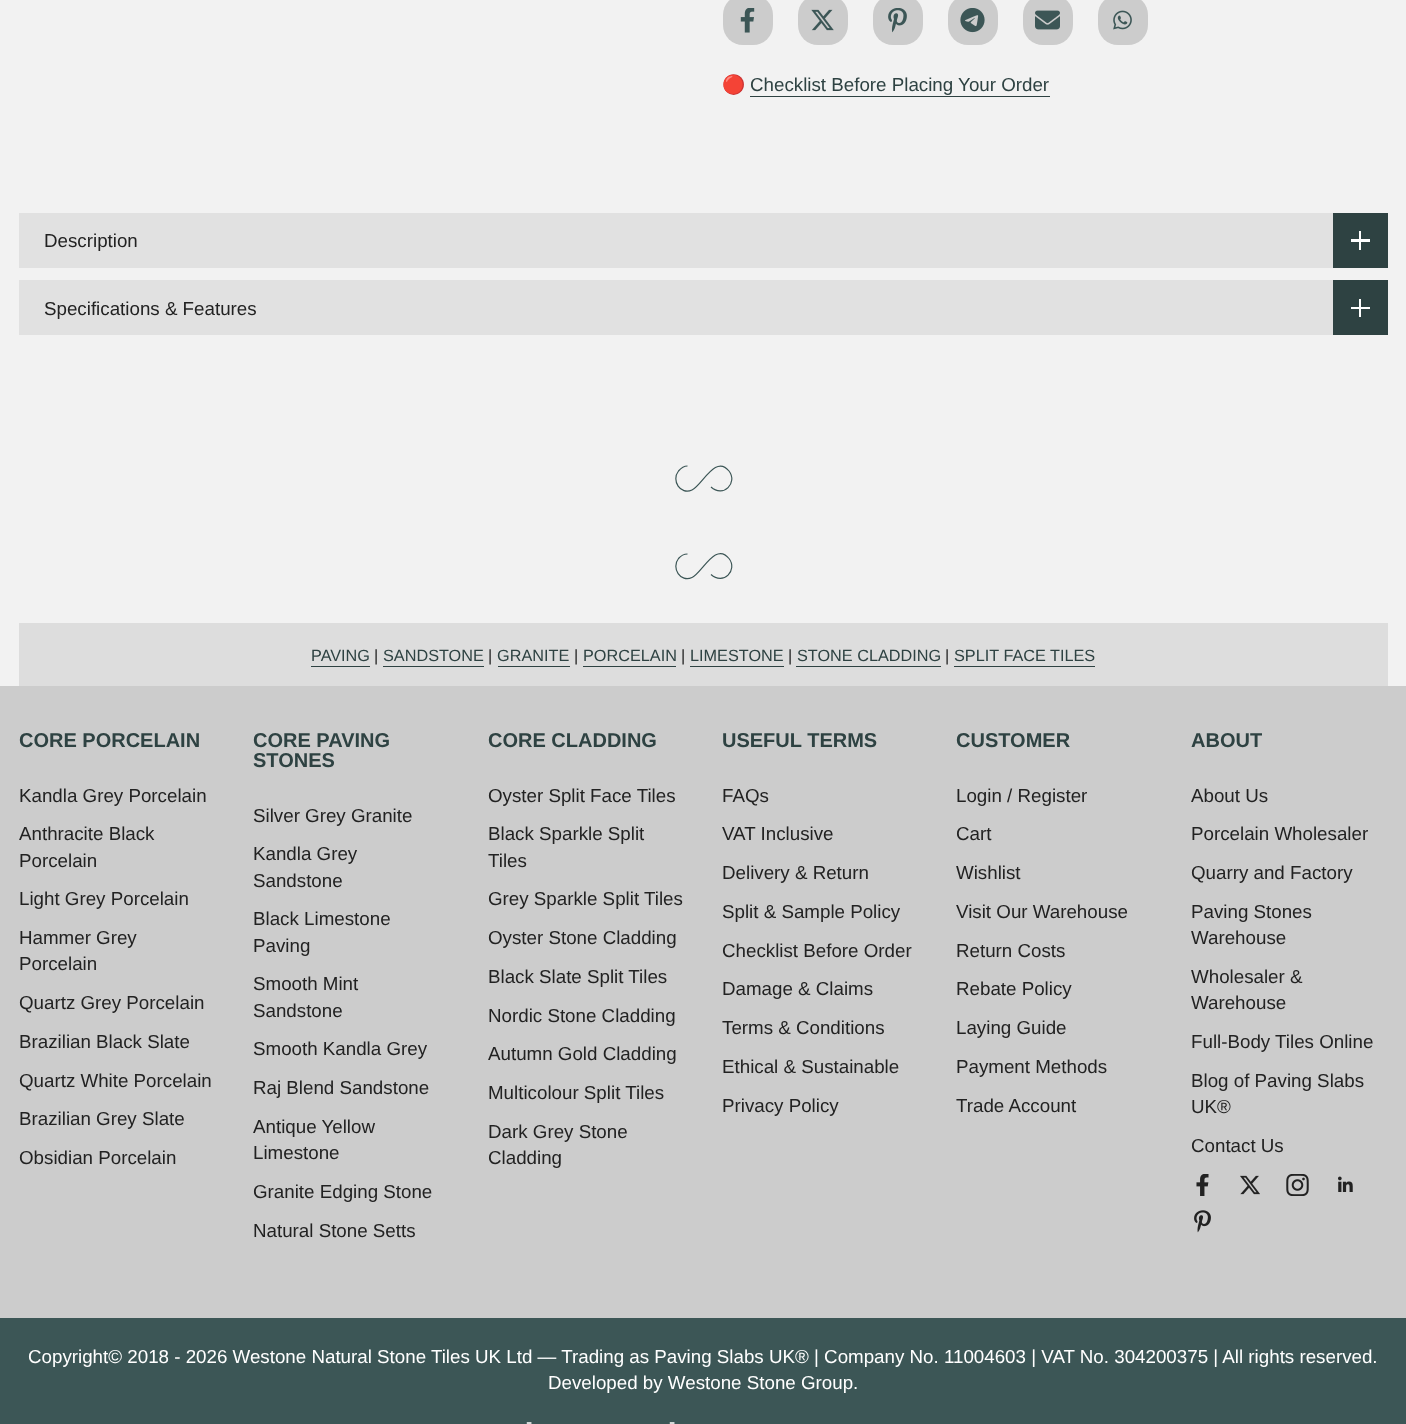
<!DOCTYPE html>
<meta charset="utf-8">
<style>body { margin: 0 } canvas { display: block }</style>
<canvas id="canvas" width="1406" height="1424"></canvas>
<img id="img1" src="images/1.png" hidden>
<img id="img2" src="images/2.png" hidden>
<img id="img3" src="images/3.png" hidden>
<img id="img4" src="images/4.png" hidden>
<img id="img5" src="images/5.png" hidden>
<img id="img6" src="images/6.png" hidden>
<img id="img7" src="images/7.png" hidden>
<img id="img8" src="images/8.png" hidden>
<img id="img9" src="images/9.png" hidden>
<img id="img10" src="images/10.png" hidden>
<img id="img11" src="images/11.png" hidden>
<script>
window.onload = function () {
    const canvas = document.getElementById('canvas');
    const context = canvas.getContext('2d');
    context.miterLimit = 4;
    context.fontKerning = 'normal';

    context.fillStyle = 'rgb(242, 242, 242)';
    context.fillRect(0, 0, 1406, 1424);
    context.fillStyle = 'rgb(204, 204, 204)';
    context.beginPath();
    context.roundRect(723, -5, 50, 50, 20);
    context.fill();
    context.drawImage(document.getElementById('img1'), 740, 8, 15, 25);
    context.beginPath();
    context.roundRect(798, -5, 50, 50, 20);
    context.fill();
    context.drawImage(document.getElementById('img2'), 811, 9, 23, 22);
    context.beginPath();
    context.roundRect(873, -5, 50, 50, 20);
    context.fill();
    context.drawImage(document.getElementById('img3'), 888, 8, 19, 25);
    context.beginPath();
    context.roundRect(948, -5, 50, 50, 20);
    context.fill();
    context.drawImage(document.getElementById('img4'), 960, 8, 25, 25);
    context.beginPath();
    context.roundRect(1023, -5, 50, 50, 20);
    context.fill();
    context.drawImage(document.getElementById('img5'), 1035, 10, 25, 20);
    context.beginPath();
    context.roundRect(1098, -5, 50, 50, 20);
    context.fill();
    context.drawImage(document.getElementById('img6'), 1113, 10, 19, 20);
    context.fillStyle = 'rgb(46, 66, 66)';
    context.fillRect(750, 96, 300, 1);
    context.fillStyle = 'rgb(225, 225, 225)';
    context.fillRect(19, 213, 1314, 55);
    context.fillStyle = 'rgb(46, 66, 66)';
    context.fillRect(1333, 213, 55, 55);
    context.fillStyle = 'rgb(255, 255, 255)';
    context.fillRect(1359, 231, 2, 19);
    context.fillRect(1351, 239, 19, 3);
    context.fillStyle = 'rgb(225, 225, 225)';
    context.fillRect(19, 280, 1314, 55);
    context.fillStyle = 'rgb(46, 66, 66)';
    context.fillRect(1333, 280, 55, 55);
    context.fillStyle = 'rgb(255, 255, 255)';
    context.fillRect(1359, 299, 2, 18);
    context.fillRect(1351, 307, 19, 2);
    context.beginPath();
    context.moveTo(687.5, 466);
    context.bezierCurveTo(684, 466, 681, 468, 678.5, 471);
    context.bezierCurveTo(671, 480.5, 680.5, 495.5, 692, 490);
    context.bezierCurveTo(702, 485.5, 715.5, 454, 729, 471);
    context.bezierCurveTo(738, 482.5, 723.5, 498.5, 711, 487);
    context.strokeStyle = 'rgb(60, 86, 86)';
    context.lineWidth = 1.2;
    context.stroke();
    context.beginPath();
    context.moveTo(687.5, 554);
    context.bezierCurveTo(684, 554, 681, 555.5, 678.5, 558.5);
    context.bezierCurveTo(671, 568, 680.5, 583, 692, 577.5);
    context.bezierCurveTo(702, 573, 715.5, 541.5, 729, 558.5);
    context.bezierCurveTo(738, 570, 723.5, 586, 711, 574.5);
    context.stroke();
    context.fillStyle = 'rgb(221, 221, 221)';
    context.fillRect(19, 623, 1369, 63);
    context.fillStyle = 'rgb(46, 66, 66)';
    context.fillRect(311, 666, 59, 1);
    context.fillRect(383, 666, 101, 1);
    context.fillRect(498, 666, 72, 1);
    context.fillRect(583, 666, 93, 1);
    context.fillRect(690, 666, 94, 1);
    context.fillRect(796, 666, 145, 1);
    context.fillRect(954, 666, 141, 1);
    context.fillStyle = 'rgb(204, 204, 204)';
    context.fillRect(0, 686, 1406, 632);
    context.drawImage(document.getElementById('img7'), 1196, 1174, 13, 22);
    context.drawImage(document.getElementById('img8'), 1240, 1175, 20, 20);
    context.drawImage(document.getElementById('img9'), 1286, 1174, 23, 22);
    context.drawImage(document.getElementById('img10'), 1338, 1176, 15, 16);
    context.drawImage(document.getElementById('img11'), 1194, 1210, 17, 23);
    context.fillStyle = 'rgb(60, 86, 86)';
    context.fillRect(0, 1318, 1406, 106);
    context.font = '18.75px Noto Color Emoji';
    context.fillStyle = 'rgb(34, 34, 34)';
    context.fillText('🔴', 722, 91);
    context.font = '18.75px Liberation Sans';
    context.fillStyle = 'rgb(46, 66, 66)';
    context.fillText('Checklist Before Placing Your Order', 750, 91);
    context.fillStyle = 'rgb(34, 34, 34)';
    context.fillText('Description', 44, 247);
    context.fillText('Specifications & Features', 44, 315);
    context.font = '16.25px Liberation Sans';
    context.fillStyle = 'rgb(46, 66, 66)';
    context.fillText('PAVING', 311, 661);
    context.fillStyle = 'rgb(34, 34, 34)';
    context.fillText('|', 374, 661);
    context.fillStyle = 'rgb(46, 66, 66)';
    context.fillText('SANDSTONE', 383, 661);
    context.fillStyle = 'rgb(34, 34, 34)';
    context.fillText('|', 488, 661);
    context.fillStyle = 'rgb(46, 66, 66)';
    context.fillText('GRANITE', 497, 661);
    context.fillStyle = 'rgb(34, 34, 34)';
    context.fillText('|', 574, 661);
    context.fillStyle = 'rgb(46, 66, 66)';
    context.fillText('PORCELAIN', 583, 661);
    context.fillStyle = 'rgb(34, 34, 34)';
    context.fillText('|', 681, 661);
    context.fillStyle = 'rgb(46, 66, 66)';
    context.fillText('LIMESTONE', 690, 661);
    context.fillStyle = 'rgb(34, 34, 34)';
    context.fillText('|', 788, 661);
    context.fillStyle = 'rgb(46, 66, 66)';
    context.fillText('STONE CLADDING', 797, 661);
    context.fillStyle = 'rgb(34, 34, 34)';
    context.fillText('|', 945, 661);
    context.fillStyle = 'rgb(46, 66, 66)';
    context.fillText('SPLIT FACE TILES', 954, 661);
    context.font = 'bold 20px Liberation Sans';
    context.fillText('CORE PORCELAIN', 19, 747);
    context.font = '18.75px Liberation Sans';
    context.fillStyle = 'rgb(34, 34, 34)';
    context.fillText('Kandla Grey Porcelain', 19, 802);
    context.fillText('Anthracite Black', 19, 840);
    context.fillText('Porcelain', 19, 867);
    context.fillText('Light Grey Porcelain', 19, 905);
    context.fillText('Hammer Grey', 19, 944);
    context.fillText('Porcelain', 19, 970);
    context.fillText('Quartz Grey Porcelain', 19, 1009);
    context.fillText('Brazilian Black Slate', 19, 1048);
    context.fillText('Quartz White Porcelain', 19, 1087);
    context.fillText('Brazilian Grey Slate', 19, 1125);
    context.fillText('Obsidian Porcelain', 19, 1164);
    context.font = 'bold 20px Liberation Sans';
    context.fillStyle = 'rgb(46, 66, 66)';
    context.fillText('CORE PAVING', 253, 747);
    context.fillText('STONES', 253, 767);
    context.font = '18.75px Liberation Sans';
    context.fillStyle = 'rgb(34, 34, 34)';
    context.fillText('Silver Grey Granite', 253, 822);
    context.fillText('Kandla Grey', 253, 860);
    context.fillText('Sandstone', 253, 887);
    context.fillText('Black Limestone', 253, 925);
    context.fillText('Paving', 253, 952);
    context.fillText('Smooth Mint', 253, 990);
    context.fillText('Sandstone', 253, 1017);
    context.fillText('Smooth Kandla Grey', 253, 1055);
    context.fillText('Raj Blend Sandstone', 253, 1094);
    context.fillText('Antique Yellow', 253, 1133);
    context.fillText('Limestone', 253, 1159);
    context.fillText('Granite Edging Stone', 253, 1198);
    context.fillText('Natural Stone Setts', 253, 1237);
    context.font = 'bold 20px Liberation Sans';
    context.fillStyle = 'rgb(46, 66, 66)';
    context.fillText('CORE CLADDING', 488, 747);
    context.font = '18.75px Liberation Sans';
    context.fillStyle = 'rgb(34, 34, 34)';
    context.fillText('Oyster Split Face Tiles', 488, 802);
    context.fillText('Black Sparkle Split', 488, 840);
    context.fillText('Tiles', 488, 867);
    context.fillText('Grey Sparkle Split Tiles', 488, 905);
    context.fillText('Oyster Stone Cladding', 488, 944);
    context.fillText('Black Slate Split Tiles', 488, 983);
    context.fillText('Nordic Stone Cladding', 488, 1022);
    context.fillText('Autumn Gold Cladding', 488, 1060);
    context.fillText('Multicolour Split Tiles', 488, 1099);
    context.fillText('Dark Grey Stone', 488, 1138);
    context.fillText('Cladding', 488, 1164);
    context.font = 'bold 20px Liberation Sans';
    context.fillStyle = 'rgb(46, 66, 66)';
    context.fillText('USEFUL TERMS', 722, 747);
    context.font = '18.75px Liberation Sans';
    context.fillStyle = 'rgb(34, 34, 34)';
    context.fillText('FAQs', 722, 802);
    context.fillText('VAT Inclusive', 722, 840);
    context.fillText('Delivery & Return', 722, 879);
    context.fillText('Split & Sample Policy', 722, 918);
    context.fillText('Checklist Before Order', 722, 957);
    context.fillText('Damage & Claims', 722, 995);
    context.fillText('Terms & Conditions', 722, 1034);
    context.fillText('Ethical & Sustainable', 722, 1073);
    context.fillText('Privacy Policy', 722, 1112);
    context.font = 'bold 20px Liberation Sans';
    context.fillStyle = 'rgb(46, 66, 66)';
    context.fillText('CUSTOMER', 956, 747);
    context.font = '18.75px Liberation Sans';
    context.fillStyle = 'rgb(34, 34, 34)';
    context.fillText('Login / Register', 956, 802);
    context.fillText('Cart', 956, 840);
    context.fillText('Wishlist', 956, 879);
    context.fillText('Visit Our Warehouse', 956, 918);
    context.fillText('Return Costs', 956, 957);
    context.fillText('Rebate Policy', 956, 995);
    context.fillText('Laying Guide', 956, 1034);
    context.fillText('Payment Methods', 956, 1073);
    context.fillText('Trade Account', 956, 1112);
    context.font = 'bold 20px Liberation Sans';
    context.fillStyle = 'rgb(46, 66, 66)';
    context.fillText('ABOUT', 1191, 747);
    context.font = '18.75px Liberation Sans';
    context.fillStyle = 'rgb(34, 34, 34)';
    context.fillText('About Us', 1191, 802);
    context.fillText('Porcelain Wholesaler', 1191, 840);
    context.fillText('Quarry and Factory', 1191, 879);
    context.fillText('Paving Stones', 1191, 918);
    context.fillText('Warehouse', 1191, 944);
    context.fillText('Wholesaler &', 1191, 983);
    context.fillText('Warehouse', 1191, 1009);
    context.fillText('Full-Body Tiles Online', 1191, 1048);
    context.fillText('Blog of Paving Slabs', 1191, 1087);
    context.fillText('UK®', 1191, 1113);
    context.fillText('Contact Us', 1191, 1152);
    context.fillStyle = 'rgb(255, 255, 255)';
    context.fillText('Copyright© 2018 - 2026 Westone Natural Stone Tiles UK Ltd — Trading as Paving Slabs UK® | Company No. 11004603 | VAT No. 304200375 | All rights reserved.', 28, 1363);
    context.fillText('Developed by Westone Stone Group.', 548, 1389);
    context.fillText('-', 526, 1428);
    context.fillText('-', 669, 1428);
};
</script>
